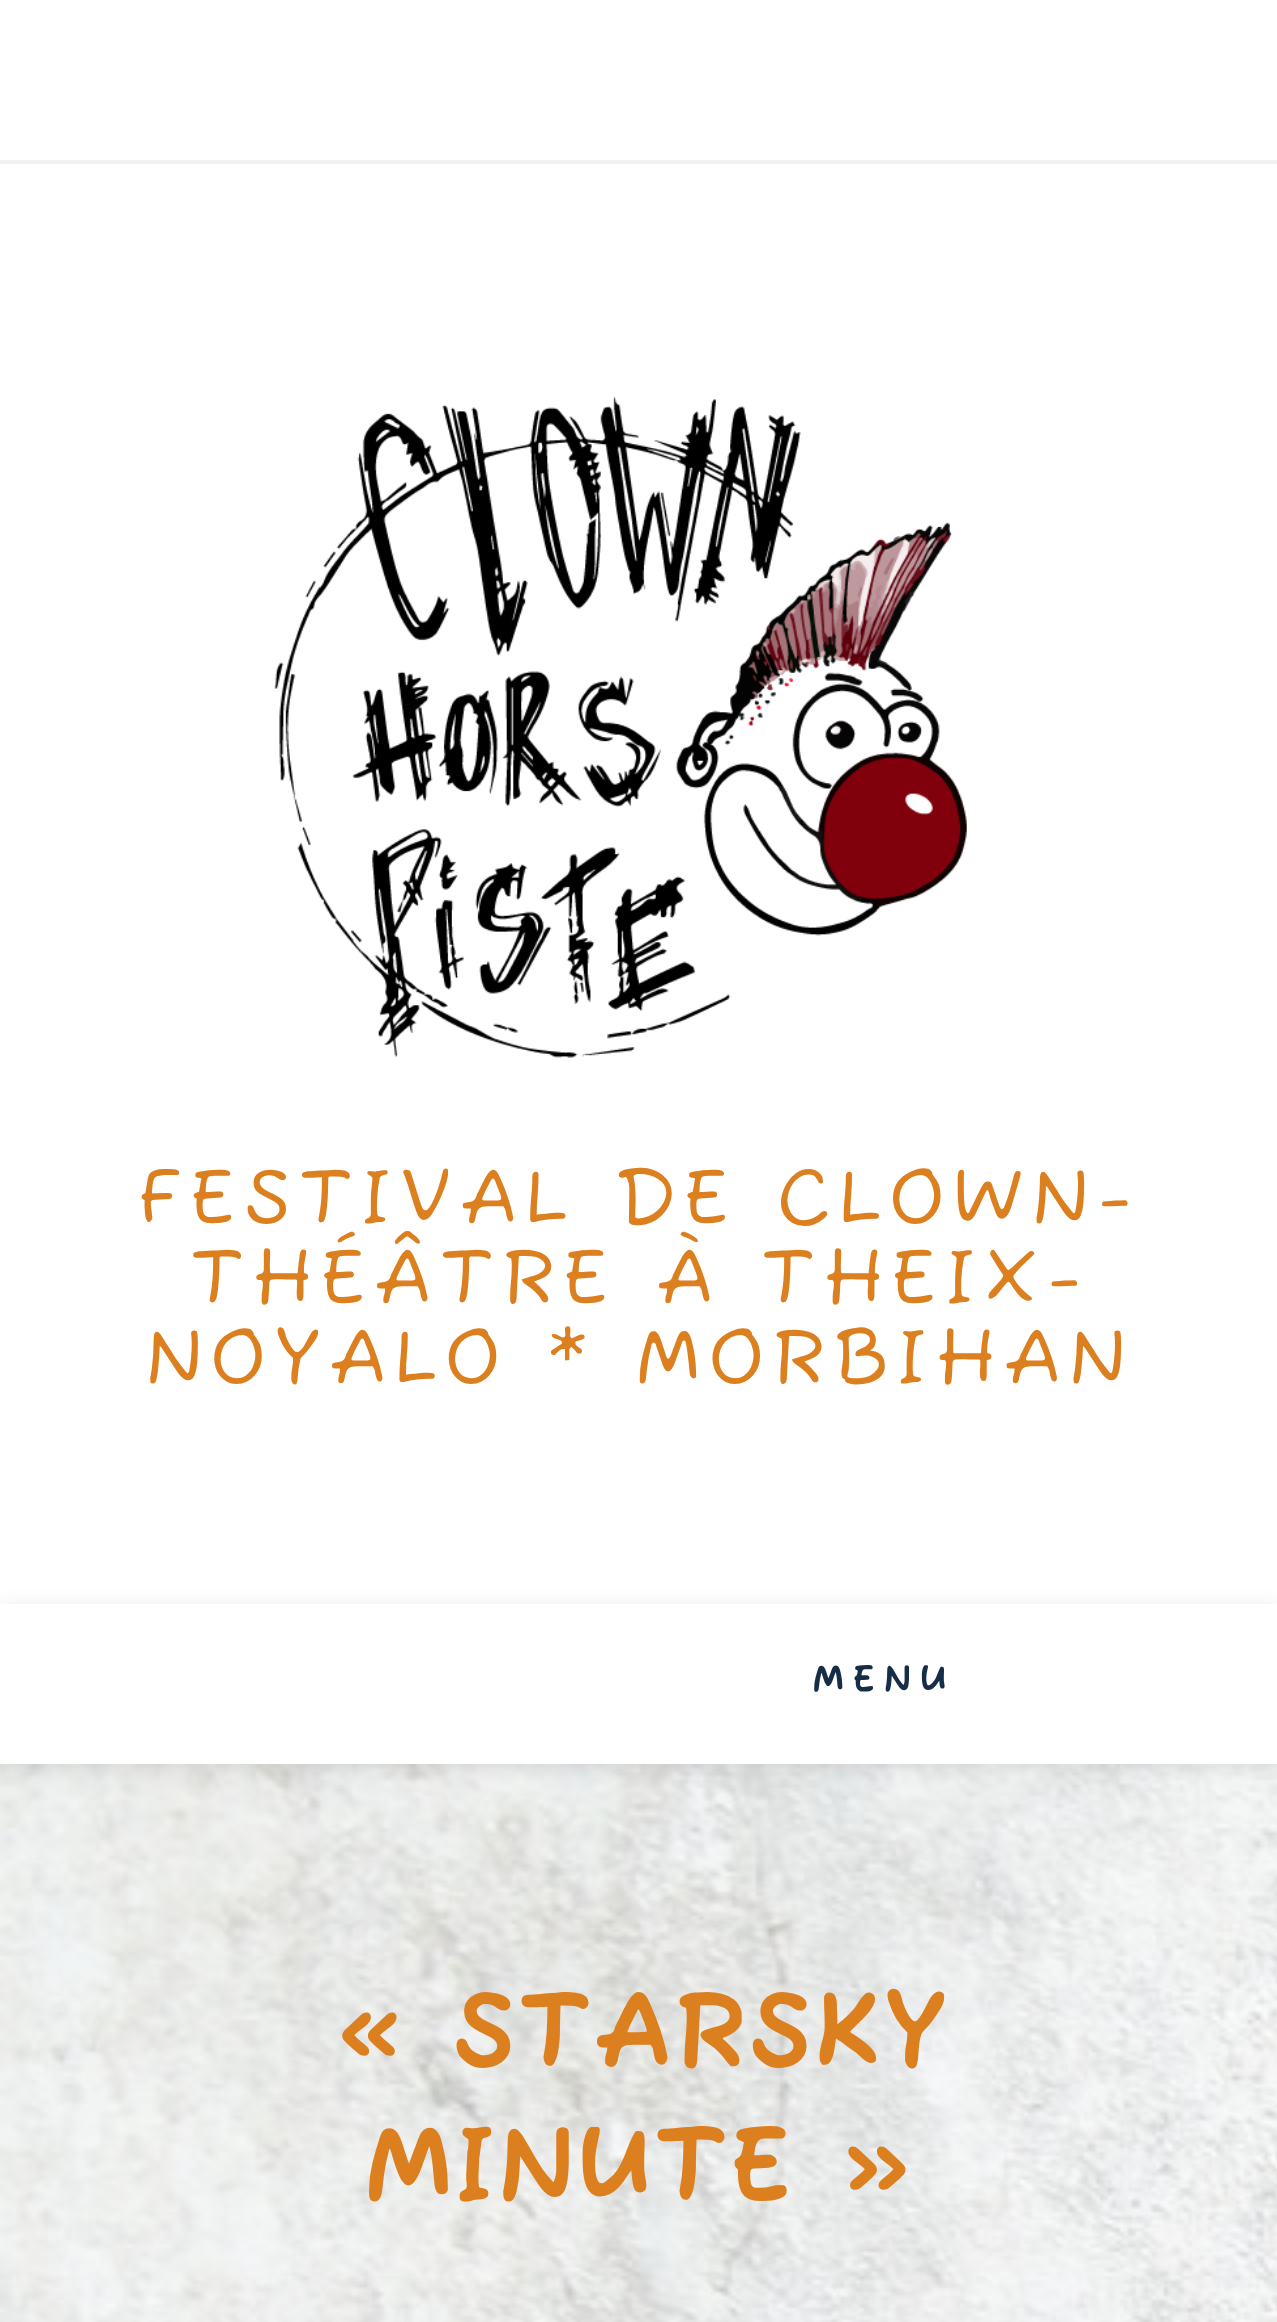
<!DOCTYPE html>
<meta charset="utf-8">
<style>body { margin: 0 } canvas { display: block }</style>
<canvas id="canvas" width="1277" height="2322"></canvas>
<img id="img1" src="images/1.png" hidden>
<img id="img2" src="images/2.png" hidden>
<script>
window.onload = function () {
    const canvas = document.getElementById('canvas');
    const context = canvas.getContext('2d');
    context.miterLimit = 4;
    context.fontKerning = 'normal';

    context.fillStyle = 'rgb(255, 255, 255)';
    context.fillRect(0, 0, 1277, 2322);
    context.fillStyle = 'rgb(241, 241, 241)';
    context.fillRect(0, 160, 1277, 4);
    context.drawImage(document.getElementById('img1'), 274, 396, 693, 662);
    context.drawImage(document.getElementById('img2'), 0, 1764, 1277, 558);
    context.save();
    context.beginPath();
    context.moveTo(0, 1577);
    context.lineTo(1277, 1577);
    context.lineTo(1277, 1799);
    context.lineTo(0, 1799);
    context.closePath();
    context.moveTo(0, 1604);
    context.lineTo(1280, 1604);
    context.lineTo(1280, 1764);
    context.lineTo(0, 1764);
    context.closePath();
    context.clip('evenodd');
    context.fillStyle = 'rgba(0, 0, 0, 0.1)';
    context.filter = 'blur(10px)';
    context.beginPath();
    context.rect(0, 1608, 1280, 160);
    context.fill();
    context.filter = 'none';
    context.restore();
    context.letterSpacing = '8px';
    context.font = '80px Fuzzy Bubbles';
    context.fillStyle = 'rgb(220, 127, 31)';
    context.fillText('FESTIVAL DE CLOWN-', 138, 1224);
    context.fillText('THÉÂTRE À THEIX-', 190, 1304);
    context.fillText('NOYALO * MORBIHAN', 146, 1384);
    context.font = 'bold 40px Fuzzy Bubbles';
    context.fillStyle = 'rgb(22, 45, 71)';
    context.fillText('MENU', 812, 1692);
    context.letterSpacing = '0px';
    context.font = 'bold 112px Fuzzy Bubbles';
    context.fillStyle = 'rgb(220, 127, 31)';
    context.fillText('« STARSKY', 331, 2068);
    context.fillText('MINUTE »', 363, 2202);
};
</script>
